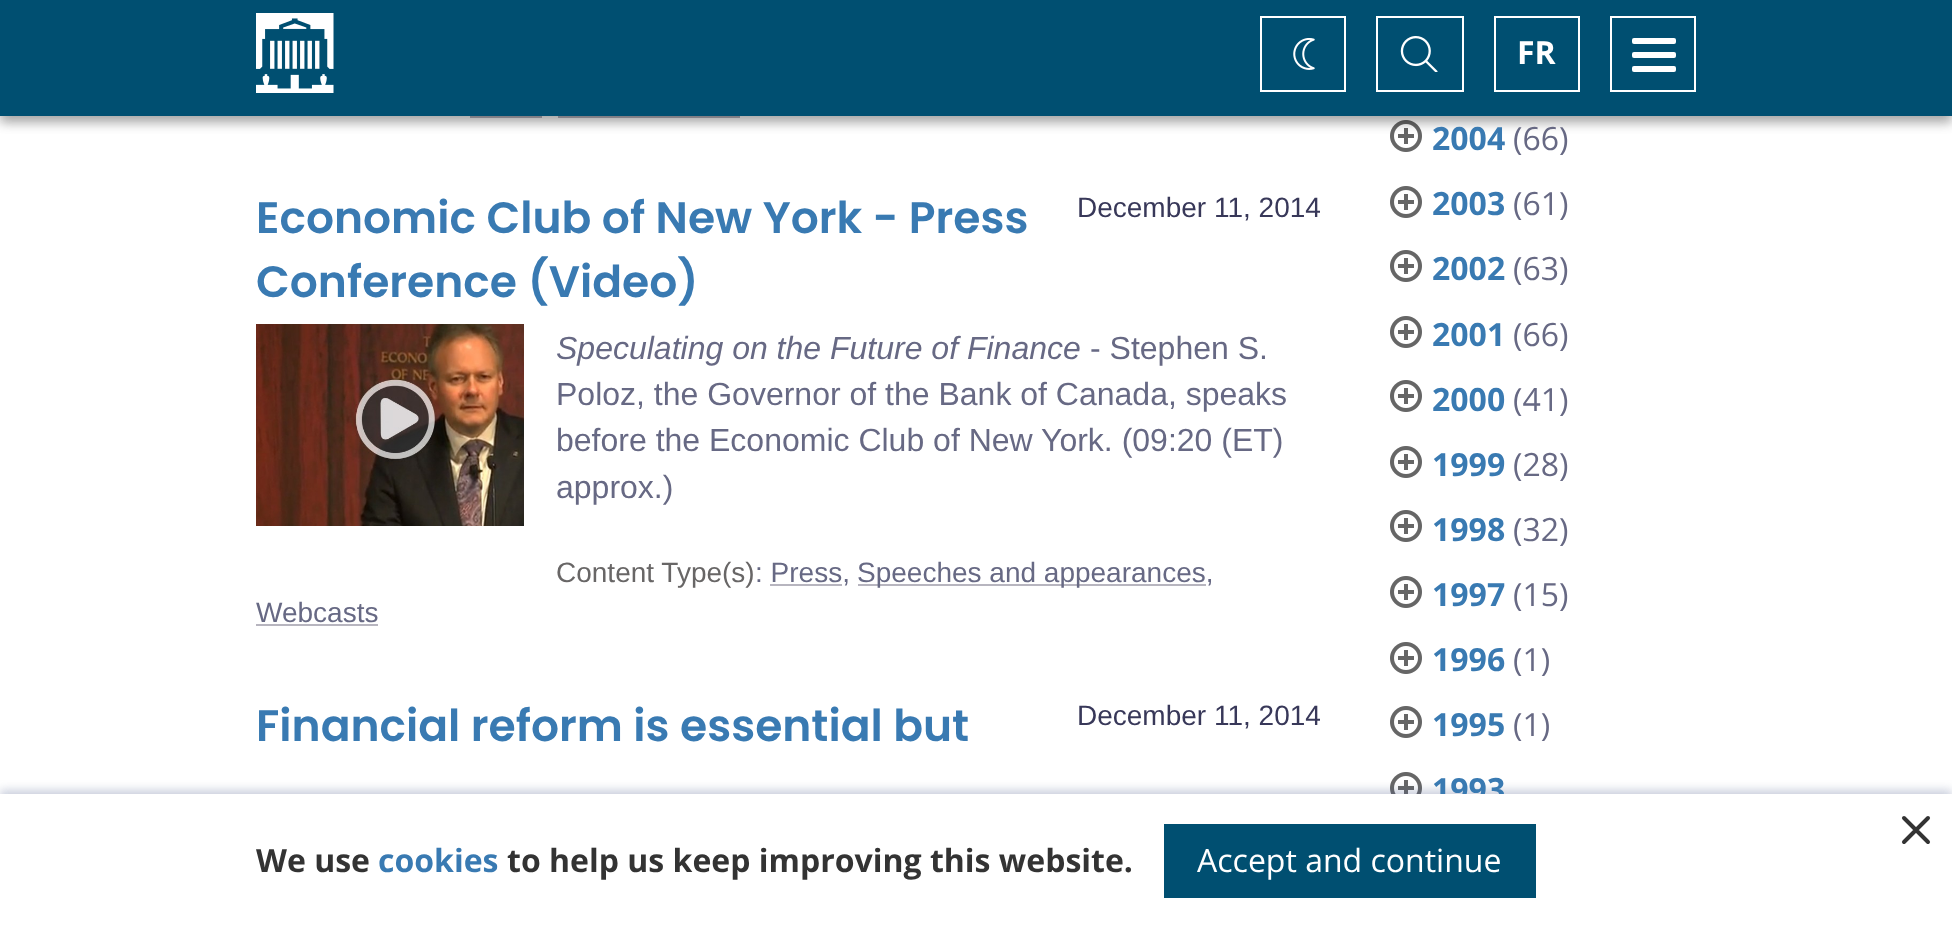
<!DOCTYPE html>
<meta charset="utf-8">
<style>body { margin: 0 } canvas { display: block }</style>
<canvas id="canvas" width="1952" height="927"></canvas>
<img id="img1" src="images/5.png" hidden>
<img id="img2" src="images/1.png" hidden>
<img id="img3" src="images/2.png" hidden>
<img id="img4" src="images/3.png" hidden>
<img id="img5" src="images/4.png" hidden>
<img id="img6" src="images/6.png" hidden>
<script>
window.onload = function () {
    const canvas = document.getElementById('canvas');
    const context = canvas.getContext('2d');
    context.miterLimit = 4;
    context.fontKerning = 'normal';

    context.fillStyle = 'rgb(255, 255, 255)';
    context.fillRect(0, 0, 1952, 927);
    context.fillStyle = 'rgb(183, 181, 191)';
    context.fillRect(470, 116, 72, 2);
    context.fillRect(558, 116, 182, 2);
    context.drawImage(document.getElementById('img1'), 1390, 120, 32, 32);
    context.fillStyle = 'rgba(0, 0, 0, 0.23)';
    context.filter = 'blur(6px)';
    context.beginPath();
    context.rect(0, 6, 1952, 116);
    context.fill();
    context.filter = 'none';
    context.fillStyle = 'rgba(0, 0, 0, 0.16)';
    context.filter = 'blur(6px)';
    context.beginPath();
    context.rect(0, 6, 1952, 116);
    context.fill();
    context.filter = 'none';
    context.fillStyle = 'rgb(0, 79, 113)';
    context.fillRect(0, 0, 1952, 116);
    context.drawImage(document.getElementById('img2'), 256, 13, 78, 80);
    context.strokeStyle = 'rgb(255, 255, 255)';
    context.lineWidth = 2;
    context.strokeRect(1261, 17, 84, 74);
    context.drawImage(document.getElementById('img3'), 1293, 38, 22, 32);
    context.strokeRect(1377, 17, 86, 74);
    context.drawImage(document.getElementById('img4'), 1400, 36, 38, 36);
    context.strokeRect(1495, 17, 84, 74);
    context.strokeRect(1611, 17, 84, 74);
    context.fillStyle = 'rgb(255, 255, 255)';
    context.beginPath();
    context.roundRect(1632, 38, 44, 6, 2);
    context.fill();
    context.beginPath();
    context.roundRect(1632, 52, 44, 6, 2);
    context.fill();
    context.beginPath();
    context.roundRect(1632, 66, 44, 6, 2);
    context.fill();
    context.drawImage(document.getElementById('img5'), 256, 324, 268, 202);
    context.fillStyle = 'rgb(183, 181, 191)';
    context.fillRect(858, 584, 348, 2);
    context.fillRect(256, 624, 122, 2);
    context.drawImage(document.getElementById('img1'), 1390, 186, 32, 32);
    context.drawImage(document.getElementById('img1'), 1390, 250, 32, 32);
    context.drawImage(document.getElementById('img1'), 1390, 316, 32, 32);
    context.drawImage(document.getElementById('img1'), 1390, 380, 32, 32);
    context.drawImage(document.getElementById('img1'), 1390, 446, 32, 32);
    context.drawImage(document.getElementById('img1'), 1390, 510, 32, 32);
    context.drawImage(document.getElementById('img1'), 1390, 576, 32, 32);
    context.drawImage(document.getElementById('img1'), 1390, 642, 32, 32);
    context.drawImage(document.getElementById('img1'), 1390, 706, 32, 32);
    context.drawImage(document.getElementById('img6'), 1390, 772, 32, 22);
    context.fillStyle = 'rgba(79, 96, 144, 0.3)';
    context.filter = 'blur(5px)';
    context.beginPath();
    context.rect(0, 790, 1952, 134);
    context.fill();
    context.filter = 'none';
    context.font = 'bold 32px Open Sans';
    context.fillStyle = 'rgb(255, 255, 255)';
    context.fillText('FR', 1517, 64);
    context.font = '600 44px Poppins';
    context.fillStyle = 'rgb(57, 122, 178)';
    context.fillText('Economic Club of New York - Press', 256, 233);
    context.fillText('Conference (Video)', 256, 297);
    context.font = '28px Liberation Sans';
    context.fillStyle = 'rgb(56, 56, 89)';
    context.fillText('December 11, 2014', 1077, 217);
    context.font = 'italic 32px Liberation Sans';
    context.fillStyle = 'rgb(103, 105, 132)';
    context.fillText('Speculating on the Future of Finance', 556, 359);
    context.font = '32px Liberation Sans';
    context.fillText('- Stephen S.', 1090, 359);
    context.fillText('Poloz, the Governor of the Bank of Canada, speaks', 556, 405);
    context.fillText('before the Economic Club of New York. (09:20 (ET)', 556, 451);
    context.fillText('approx.)', 556, 498);
    context.font = '28px Liberation Sans';
    context.fillStyle = 'rgb(104, 102, 102)';
    context.fillText('Content Type(s)', 556, 582);
    context.fillStyle = 'rgb(103, 105, 132)';
    context.fillText(': Press,', 755, 582);
    context.fillStyle = 'rgb(183, 181, 191)';
    context.fillRect(770, 584, 72, 2);
    context.fillStyle = 'rgb(103, 105, 132)';
    context.fillText('Speeches and appearances,', 857, 582);
    context.fillText('Webcasts', 256, 622);
    context.font = '600 44px Poppins';
    context.fillStyle = 'rgb(57, 122, 178)';
    context.fillText('Financial reform is essential but', 256, 741);
    context.font = '28px Liberation Sans';
    context.fillStyle = 'rgb(56, 56, 89)';
    context.fillText('December 11, 2014', 1077, 725);
    context.font = 'bold 32px Open Sans';
    context.fillStyle = 'rgb(57, 122, 178)';
    context.fillText('2004', 1432, 150);
    context.font = '32px Open Sans';
    context.fillStyle = 'rgb(103, 105, 132)';
    context.fillText('(66)', 1513, 150);
    context.font = 'bold 32px Open Sans';
    context.fillStyle = 'rgb(57, 122, 178)';
    context.fillText('2003', 1432, 215);
    context.font = '32px Open Sans';
    context.fillStyle = 'rgb(103, 105, 132)';
    context.fillText('(61)', 1513, 215);
    context.font = 'bold 32px Open Sans';
    context.fillStyle = 'rgb(57, 122, 178)';
    context.fillText('2002', 1432, 280);
    context.font = '32px Open Sans';
    context.fillStyle = 'rgb(103, 105, 132)';
    context.fillText('(63)', 1513, 280);
    context.font = 'bold 32px Open Sans';
    context.fillStyle = 'rgb(57, 122, 178)';
    context.fillText('2001', 1432, 346);
    context.font = '32px Open Sans';
    context.fillStyle = 'rgb(103, 105, 132)';
    context.fillText('(66)', 1513, 346);
    context.font = 'bold 32px Open Sans';
    context.fillStyle = 'rgb(57, 122, 178)';
    context.fillText('2000', 1432, 411);
    context.font = '32px Open Sans';
    context.fillStyle = 'rgb(103, 105, 132)';
    context.fillText('(41)', 1513, 411);
    context.font = 'bold 32px Open Sans';
    context.fillStyle = 'rgb(57, 122, 178)';
    context.fillText('1999', 1432, 476);
    context.font = '32px Open Sans';
    context.fillStyle = 'rgb(103, 105, 132)';
    context.fillText('(28)', 1513, 476);
    context.font = 'bold 32px Open Sans';
    context.fillStyle = 'rgb(57, 122, 178)';
    context.fillText('1998', 1432, 541);
    context.font = '32px Open Sans';
    context.fillStyle = 'rgb(103, 105, 132)';
    context.fillText('(32)', 1513, 541);
    context.font = 'bold 32px Open Sans';
    context.fillStyle = 'rgb(57, 122, 178)';
    context.fillText('1997', 1432, 606);
    context.font = '32px Open Sans';
    context.fillStyle = 'rgb(103, 105, 132)';
    context.fillText('(15)', 1513, 606);
    context.font = 'bold 32px Open Sans';
    context.fillStyle = 'rgb(57, 122, 178)';
    context.fillText('1996', 1432, 671);
    context.font = '32px Open Sans';
    context.fillStyle = 'rgb(103, 105, 132)';
    context.fillText('(1)', 1513, 671);
    context.font = 'bold 32px Open Sans';
    context.fillStyle = 'rgb(57, 122, 178)';
    context.fillText('1995', 1432, 736);
    context.font = '32px Open Sans';
    context.fillStyle = 'rgb(103, 105, 132)';
    context.fillText('(1)', 1513, 736);
    context.font = 'bold 32px Open Sans';
    context.fillStyle = 'rgb(57, 122, 178)';
    context.fillText('1993', 1432, 801);
    context.fillStyle = 'rgb(255, 255, 255)';
    context.fillRect(0, 794, 1952, 133);
    context.beginPath();
    context.moveTo(1928, 818);
    context.lineTo(1904, 842);
    context.moveTo(1904, 818);
    context.lineTo(1928, 842);
    context.strokeStyle = 'rgb(51, 51, 51)';
    context.lineWidth = 4;
    context.lineCap = 'round';
    context.lineJoin = 'round';
    context.stroke();
    context.fillStyle = 'rgb(51, 51, 51)';
    context.fillText('We use', 256, 872);
    context.fillStyle = 'rgb(57, 122, 178)';
    context.fillText('cookies', 378, 872);
    context.fillStyle = 'rgb(51, 51, 51)';
    context.fillText('to help us keep improving this website.', 507, 872);
    context.fillStyle = 'rgb(0, 79, 113)';
    context.fillRect(1164, 824, 372, 74);
    context.font = '32px Open Sans';
    context.fillStyle = 'rgb(255, 255, 255)';
    context.fillText('Accept and continue', 1197, 872);
};
</script>
